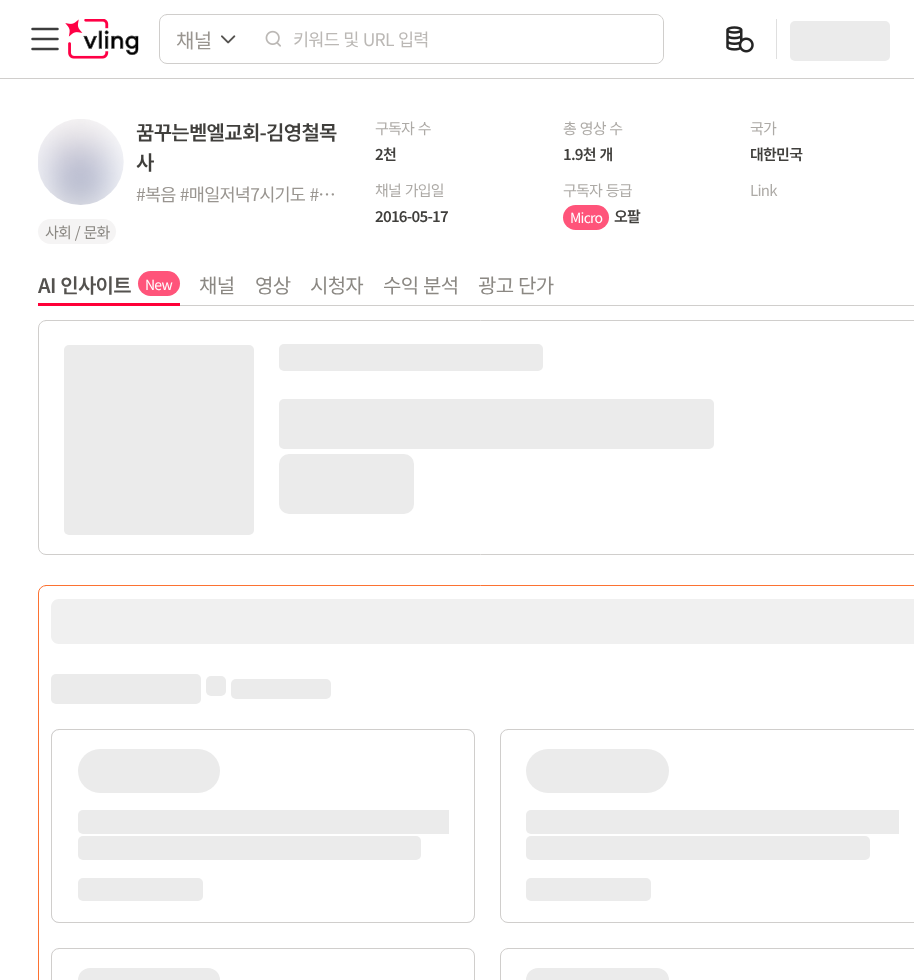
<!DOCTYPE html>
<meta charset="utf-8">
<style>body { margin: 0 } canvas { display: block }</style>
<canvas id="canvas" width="914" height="980"></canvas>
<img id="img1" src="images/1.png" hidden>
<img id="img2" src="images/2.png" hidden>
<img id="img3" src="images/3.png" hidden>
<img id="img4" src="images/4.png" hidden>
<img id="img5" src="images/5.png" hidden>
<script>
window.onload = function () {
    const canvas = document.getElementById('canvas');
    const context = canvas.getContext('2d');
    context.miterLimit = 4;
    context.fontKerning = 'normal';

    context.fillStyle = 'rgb(255, 255, 255)';
    context.fillRect(0, 0, 914, 980);
    context.fillStyle = 'rgb(208, 206, 204)';
    context.fillRect(0, 78, 914, 1);
    context.beginPath();
    context.moveTo(32.5, 29);
    context.lineTo(57.5, 29);
    context.moveTo(32.5, 39);
    context.lineTo(57.5, 39);
    context.moveTo(32.5, 49);
    context.lineTo(57.5, 49);
    context.strokeStyle = 'rgb(61, 61, 61)';
    context.lineWidth = 2.5;
    context.lineCap = 'round';
    context.lineJoin = 'bevel';
    context.stroke();
    context.drawImage(document.getElementById('img1'), 65, 19, 74, 40);
    context.beginPath();
    context.roundRect(159.5, 14.5, 504, 49, 7.5);
    context.strokeStyle = 'rgb(208, 206, 204)';
    context.lineWidth = 1;
    context.lineJoin = 'miter';
    context.stroke();
    context.drawImage(document.getElementById('img2'), 221, 35, 15, 9);
    context.fillStyle = 'rgb(255, 255, 255)';
    context.beginPath();
    context.roundRect(255, 15, 408, 48, 8);
    context.fill();
    context.drawImage(document.getElementById('img3'), 265, 30, 16, 17);
    context.drawImage(document.getElementById('img4'), 726, 26, 28, 27);
    context.fillStyle = 'rgb(223, 223, 223)';
    context.fillRect(776, 19, 1, 40);
    context.fillStyle = 'rgb(235, 235, 235)';
    context.beginPath();
    context.roundRect(790, 21, 100, 40, 5);
    context.fill();
    context.drawImage(document.getElementById('img5'), 38, 119, 86, 86);
    context.fillStyle = 'rgb(245, 244, 244)';
    context.beginPath();
    context.roundRect(38, 219, 78, 25, 12.5);
    context.fill();
    context.fillStyle = 'rgb(255, 84, 122)';
    context.beginPath();
    context.roundRect(563, 205, 46, 25, 12.5);
    context.fill();
    context.fillStyle = 'rgb(208, 206, 204)';
    context.fillRect(180, 305, 734, 1);
    context.fillStyle = 'rgb(255, 0, 56)';
    context.fillRect(38, 303, 142, 3);
    context.fillStyle = 'rgb(255, 84, 122)';
    context.beginPath();
    context.roundRect(138, 271, 42, 25, 12.5);
    context.fill();
    context.beginPath();
    context.roundRect(38.5, 320.5, 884, 234, 7.5);
    context.stroke();
    context.fillStyle = 'rgb(235, 235, 235)';
    context.beginPath();
    context.roundRect(64, 345, 190, 190, 5);
    context.fill();
    context.beginPath();
    context.roundRect(279, 344, 264, 27, 5);
    context.fill();
    context.beginPath();
    context.roundRect(279, 399, 435, 50, 5);
    context.fill();
    context.beginPath();
    context.roundRect(279, 454, 135, 60, 10);
    context.fill();
    context.beginPath();
    context.roundRect(38.5, 585.5, 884, 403, 7.5);
    context.strokeStyle = 'rgb(252, 114, 50)';
    context.stroke();
    context.fillStyle = 'rgb(240, 240, 240)';
    context.beginPath();
    context.moveTo(59, 599);
    context.lineTo(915, 599);
    context.lineTo(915, 644);
    context.lineTo(59, 644);
    context.bezierCurveTo(54.5, 644, 51, 640.5, 51, 636);
    context.lineTo(51, 607);
    context.bezierCurveTo(51, 602.5, 54.5, 599, 59, 599);
    context.closePath();
    context.fill();
    context.fillStyle = 'rgb(235, 235, 235)';
    context.beginPath();
    context.roundRect(51, 674, 150, 30, 5);
    context.fill();
    context.beginPath();
    context.roundRect(206, 676, 20, 20, 5);
    context.fill();
    context.beginPath();
    context.roundRect(231, 679, 100, 20, 5);
    context.fill();
    context.fillStyle = 'rgba(15, 34, 67, 0.1)';
    context.filter = 'blur(0.5px)';
    context.beginPath();
    context.roundRect(51, 729, 424, 194, 8);
    context.fill();
    context.filter = 'none';
    context.fillStyle = 'rgb(255, 255, 255)';
    context.beginPath();
    context.roundRect(51.5, 729.5, 423, 193, 7.5);
    context.fill();
    context.strokeStyle = 'rgb(208, 206, 204)';
    context.stroke();
    context.fillStyle = 'rgb(235, 235, 235)';
    context.beginPath();
    context.roundRect(78, 749, 142, 44, 22);
    context.fill();
    context.beginPath();
    context.roundRect(78, 810, 371, 24, [5, 0, 0, 5]);
    context.fill();
    context.beginPath();
    context.roundRect(78, 836, 343, 24, 5);
    context.fill();
    context.beginPath();
    context.roundRect(78, 878, 125, 23, 5);
    context.fill();
    context.fillStyle = 'rgba(15, 34, 67, 0.1)';
    context.filter = 'blur(0.5px)';
    context.beginPath();
    context.roundRect(500, 729, 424, 194, 8);
    context.fill();
    context.filter = 'none';
    context.fillStyle = 'rgb(255, 255, 255)';
    context.beginPath();
    context.moveTo(508, 729);
    context.lineTo(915, 729);
    context.lineTo(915, 923);
    context.lineTo(508, 923);
    context.bezierCurveTo(503.5, 923, 500, 919.5, 500, 915);
    context.lineTo(500, 737);
    context.bezierCurveTo(500, 732.5, 503.5, 729, 508, 729);
    context.closePath();
    context.fill();
    context.beginPath();
    context.roundRect(500.5, 729.5, 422, 193, 7.5);
    context.stroke();
    context.fillStyle = 'rgb(235, 235, 235)';
    context.beginPath();
    context.roundRect(526, 749, 143, 44, 22);
    context.fill();
    context.beginPath();
    context.roundRect(526, 810, 373, 24, [5, 0, 0, 5]);
    context.fill();
    context.beginPath();
    context.roundRect(526, 836, 344, 24, 5);
    context.fill();
    context.beginPath();
    context.roundRect(526, 878, 125, 23, 5);
    context.fill();
    context.fillStyle = 'rgba(15, 34, 67, 0.1)';
    context.filter = 'blur(0.5px)';
    context.beginPath();
    context.roundRect(51, 948, 424, 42, 8);
    context.fill();
    context.filter = 'none';
    context.fillStyle = 'rgb(255, 255, 255)';
    context.beginPath();
    context.roundRect(51, 948, 424, 32, [8, 8, 0, 0]);
    context.fill();
    context.beginPath();
    context.roundRect(51.5, 948.5, 423, 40, 7.5);
    context.stroke();
    context.fillStyle = 'rgb(235, 235, 235)';
    context.beginPath();
    context.roundRect(78, 968, 142, 12, [21.5, 21.5, 0, 0]);
    context.fill();
    context.beginPath();
    context.roundRect(500.5, 948.5, 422, 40, 7.5);
    context.stroke();
    context.beginPath();
    context.roundRect(526, 968, 143, 12, [21.5, 21.5, 0, 0]);
    context.fill();
    context.letterSpacing = '-0.75px';
    context.font = '20px Noto Sans KR';
    context.fillStyle = 'rgb(153, 149, 144)';
    context.fillText('채널', 176, 48);
    context.wordSpacing = '1px';
    context.font = '17.5px Noto Sans KR';
    context.fillStyle = 'rgb(187, 184, 181)';
    context.fillText('키워드 및 URL 입력', 293, 46);
    context.wordSpacing = '0px';
    context.font = '600 20px Noto Sans KR';
    context.fillStyle = 'rgb(64, 63, 60)';
    context.fillText('꿈꾸는벧엘교회-김영철목', 136, 140);
    context.fillText('사', 136, 170);
    context.wordSpacing = '1px';
    context.font = '17.5px Noto Sans KR';
    context.fillStyle = 'rgb(153, 149, 144)';
    context.fillText('#복음 #매일저녁7시기도 #…', 136, 201);
    context.font = '15px Noto Sans KR';
    context.fillStyle = 'rgb(139, 136, 131)';
    context.fillText('사회 / 문화', 45, 238);
    context.fillStyle = 'rgb(173, 170, 166)';
    context.fillText('구독자 수', 375, 134);
    context.wordSpacing = '0px';
    context.font = '600 15px Noto Sans KR';
    context.fillStyle = 'rgb(64, 63, 60)';
    context.fillText('2천', 375, 160);
    context.wordSpacing = '1px';
    context.font = '15px Noto Sans KR';
    context.fillStyle = 'rgb(173, 170, 166)';
    context.fillText('총 영상 수', 563, 134);
    context.font = '600 15px Noto Sans KR';
    context.fillStyle = 'rgb(64, 63, 60)';
    context.fillText('1.9천 개', 563, 160);
    context.wordSpacing = '0px';
    context.font = '15px Noto Sans KR';
    context.fillStyle = 'rgb(173, 170, 166)';
    context.fillText('국가', 750, 134);
    context.font = '600 15px Noto Sans KR';
    context.fillStyle = 'rgb(64, 63, 60)';
    context.fillText('대한민국', 750, 160);
    context.wordSpacing = '1px';
    context.font = '15px Noto Sans KR';
    context.fillStyle = 'rgb(173, 170, 166)';
    context.fillText('채널 가입일', 375, 196);
    context.wordSpacing = '0px';
    context.font = '600 15px Noto Sans KR';
    context.fillStyle = 'rgb(64, 63, 60)';
    context.fillText('2016-05-17', 375, 222);
    context.wordSpacing = '1px';
    context.font = '15px Noto Sans KR';
    context.fillStyle = 'rgb(173, 170, 166)';
    context.fillText('구독자 등급', 563, 196);
    context.wordSpacing = '0px';
    context.font = '14px Noto Sans KR';
    context.fillStyle = 'rgb(255, 255, 255)';
    context.fillText('Micro', 570, 223);
    context.font = '600 15px Noto Sans KR';
    context.fillStyle = 'rgb(64, 63, 60)';
    context.fillText('오팔', 614, 222);
    context.font = '15px Noto Sans KR';
    context.fillStyle = 'rgb(173, 170, 166)';
    context.fillText('Link', 750, 196);
    context.wordSpacing = '1px';
    context.font = '600 20px Noto Sans KR';
    context.fillStyle = 'rgb(84, 82, 79)';
    context.fillText('AI 인사이트', 38, 293);
    context.wordSpacing = '0px';
    context.font = '14px Noto Sans KR';
    context.fillStyle = 'rgb(255, 255, 255)';
    context.fillText('New', 145, 290);
    context.font = '20px Noto Sans KR';
    context.fillStyle = 'rgb(139, 136, 131)';
    context.fillText('채널', 199, 293);
    context.fillText('영상', 255, 293);
    context.fillText('시청자', 310, 293);
    context.wordSpacing = '1px';
    context.fillText('수익 분석', 383, 293);
    context.fillText('광고 단가', 478, 293);
};
</script>
